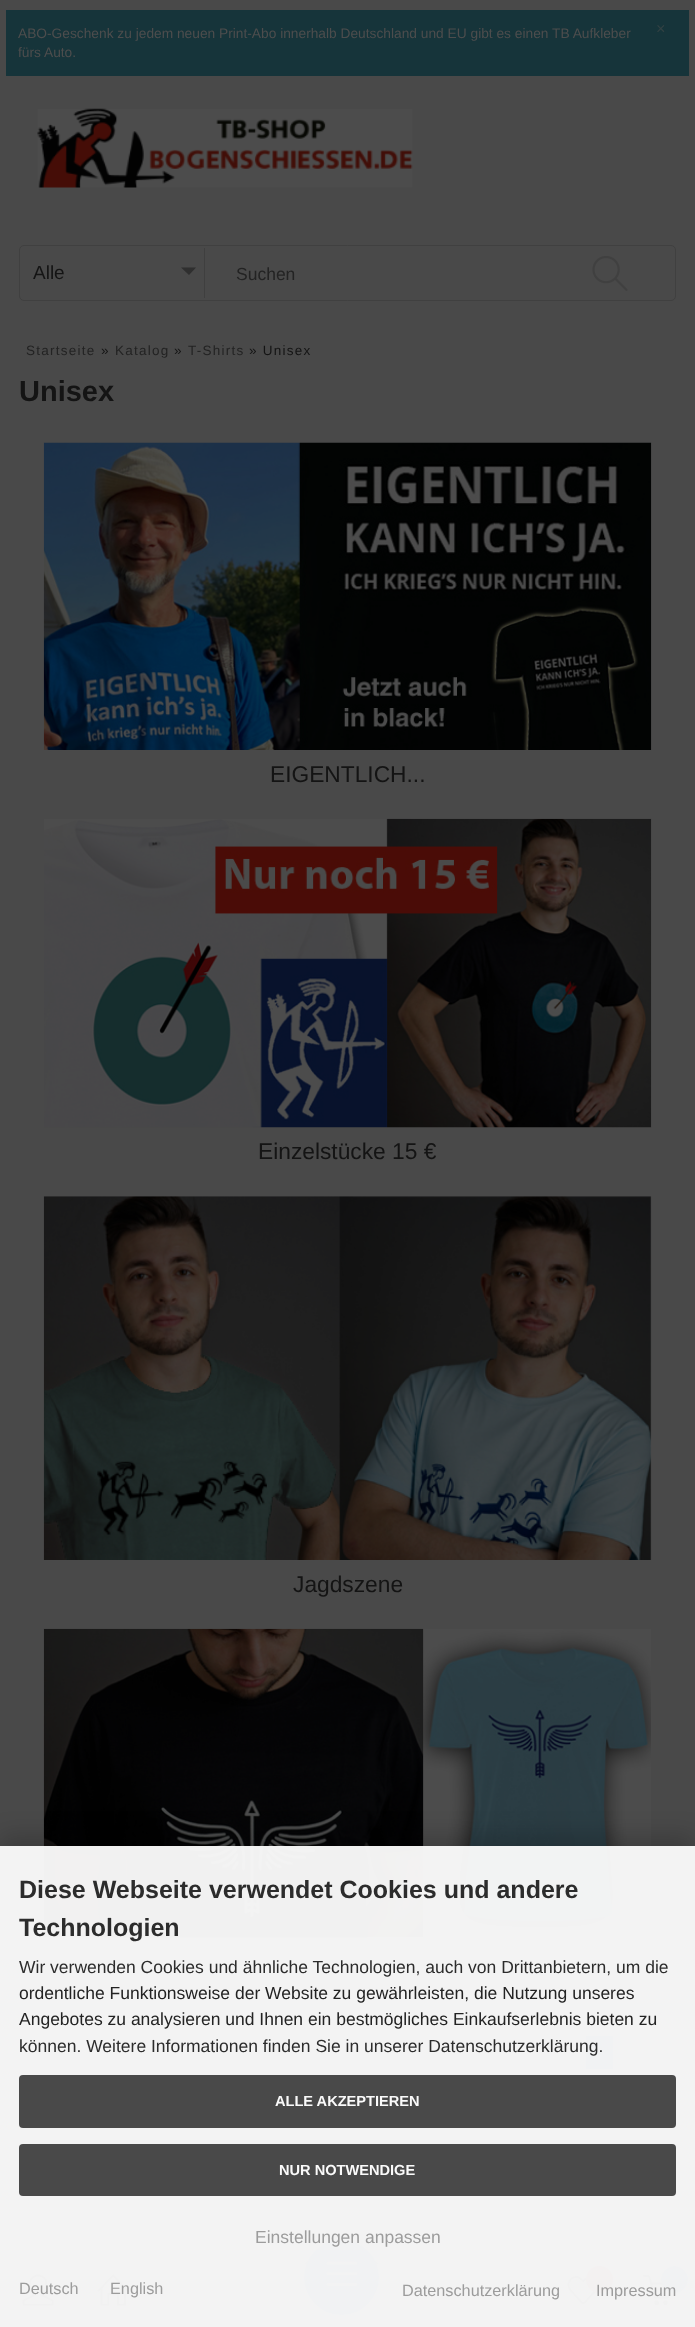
<!DOCTYPE html>
<meta charset="utf-8">
<style>body { margin: 0 } canvas { display: block }</style>
<canvas id="canvas" width="695" height="2327"></canvas>
<img id="img1" src="images/1.png" hidden>
<img id="img2" src="images/2.png" hidden>
<img id="img3" src="images/3.png" hidden>
<img id="img4" src="images/4.png" hidden>
<img id="img5" src="images/5.png" hidden>
<img id="img6" src="images/6.png" hidden>
<img id="img7" src="images/7.png" hidden>
<img id="img8" src="images/8.png" hidden>
<img id="img9" src="images/9.png" hidden>
<img id="img10" src="images/10.png" hidden>
<img id="img11" src="images/11.png" hidden>
<script>
window.onload = function () {
    const canvas = document.getElementById('canvas');
    const context = canvas.getContext('2d');
    context.miterLimit = 4;
    context.fontKerning = 'normal';

    context.fillStyle = 'rgb(73, 73, 73)';
    context.fillRect(0, 0, 695, 2327);
    context.fillStyle = 'rgb(22, 52, 58)';
    context.fillRect(6, 10, 683, 66);
    context.drawImage(document.getElementById('img1'), 37, 108, 376, 80);
    context.beginPath();
    context.roundRect(19.5, 245.5, 656, 55, 4.5);
    context.strokeStyle = 'rgb(64, 64, 64)';
    context.stroke();
    context.fillStyle = 'rgb(63, 63, 63)';
    context.fillRect(204, 248, 1, 50);
    context.fillStyle = 'rgb(47, 47, 47)';
    context.beginPath();
    context.moveTo(181, 267.5);
    context.lineTo(196, 267.5);
    context.lineTo(189, 275);
    context.closePath();
    context.fill();
    context.drawImage(document.getElementById('img2'), 592, 256, 36, 35);
    context.drawImage(document.getElementById('img3'), 43, 442, 609, 308);
    context.drawImage(document.getElementById('img4'), 44, 818, 608, 310);
    context.drawImage(document.getElementById('img5'), 43, 1196, 609, 364);
    context.drawImage(document.getElementById('img6'), 43, 1628, 608, 310);
    context.fillStyle = 'rgb(22, 52, 58)';
    context.fillRect(586, 2036, 27, 33);
    context.fillStyle = 'rgb(77, 77, 77)';
    context.fillRect(25, 2128, 315, 136);
    context.fillRect(353, 2128, 315, 136);
    context.fillStyle = 'rgba(0, 0, 0, 0.2)';
    context.filter = 'blur(3px)';
    context.beginPath();
    context.rect(0, 2260, 695, 64);
    context.fill();
    context.filter = 'none';
    context.fillStyle = 'rgb(73, 73, 73)';
    context.fillRect(0, 2264, 695, 63);
    context.drawImage(document.getElementById('img7'), 22, 2274, 32, 32);
    context.drawImage(document.getElementById('img8'), 97, 2274, 32, 32);
    context.fillStyle = 'rgba(0, 0, 0, 0.2)';
    context.filter = 'blur(3px)';
    context.beginPath();
    context.roundRect(304, 2235, 75, 75, 37.5);
    context.fill();
    context.filter = 'none';
    context.fillStyle = 'rgb(22, 52, 58)';
    context.beginPath();
    context.arc(341.5, 2277.5, 37.5, 0, 2 * Math.PI);
    context.fill();
    context.drawImage(document.getElementById('img9'), 326, 2261, 32, 25);
    context.drawImage(document.getElementById('img10'), 567, 2276, 29, 29);
    context.fillStyle = 'rgb(63, 14, 11)';
    context.beginPath();
    context.arc(599.5, 2279.5, 13.5, 0, 2 * Math.PI);
    context.fill();
    context.drawImage(document.getElementById('img11'), 642, 2274, 29, 32);
    context.fillStyle = 'rgb(22, 52, 58)';
    context.beginPath();
    context.arc(674.5, 2279.5, 13, 0, 2 * Math.PI);
    context.fill();
    context.strokeStyle = 'rgb(22, 52, 58)';
    context.stroke();
    context.save();
    context.beginPath();
    context.moveTo(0, 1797);
    context.lineTo(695, 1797);
    context.lineTo(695, 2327);
    context.lineTo(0, 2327);
    context.closePath();
    context.moveTo(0, 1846);
    context.lineTo(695, 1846);
    context.lineTo(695, 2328);
    context.lineTo(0, 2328);
    context.closePath();
    context.clip('evenodd');
    context.fillStyle = 'rgba(0, 0, 0, 0.19)';
    context.filter = 'blur(12.5px)';
    context.beginPath();
    context.rect(0, 1836, 695, 482);
    context.fill();
    context.filter = 'none';
    context.restore();
    context.fillStyle = 'rgba(249, 249, 249, 0.97)';
    context.fillRect(0, 1846, 695, 481);
    context.fillStyle = 'rgb(73, 73, 73)';
    context.beginPath();
    context.roundRect(19, 2075, 657, 53, 4);
    context.fill();
    context.beginPath();
    context.roundRect(19, 2144, 657, 52, 4);
    context.fill();
    context.font = '13.75px Liberation Sans';
    context.fillStyle = 'rgb(77, 77, 77)';
    context.fillText('ABO-Geschenk zu jedem neuen Print-Abo innerhalb Deutschland und EU gibt es einen TB Aufkleber', 18, 38);
    context.fillText('fürs Auto.', 18, 57);
    context.font = '16.25px Liberation Sans';
    context.fillStyle = 'rgb(50, 65, 67)';
    context.fillText('×', 656, 34);
    context.font = '19px Liberation Sans';
    context.fillStyle = 'rgb(20, 20, 20)';
    context.fillText('Alle', 33, 279);
    context.font = '17.5px Liberation Sans';
    context.fillStyle = 'rgb(35, 35, 35)';
    context.fillText('Suchen', 236, 280);
    context.letterSpacing = '1.25px';
    context.font = '13.5px Liberation Sans';
    context.fillText('Startseite', 26, 355);
    context.fillStyle = 'rgb(20, 20, 20)';
    context.fillText('»', 101, 355);
    context.fillStyle = 'rgb(35, 35, 35)';
    context.fillText('Katalog', 115, 355);
    context.fillStyle = 'rgb(20, 20, 20)';
    context.fillText('»', 174, 355);
    context.fillStyle = 'rgb(35, 35, 35)';
    context.fillText('T-Shirts', 188, 355);
    context.fillStyle = 'rgb(20, 20, 20)';
    context.fillText('» Unisex', 249, 355);
    context.letterSpacing = '0px';
    context.font = 'bold 29px Liberation Sans';
    context.fillText('Unisex', 19, 401);
    context.font = '22.75px Liberation Sans';
    context.fillText('EIGENTLICH...', 270, 782);
    context.fillText('Einzelstücke 15 €', 258, 1159);
    context.fillText('Jagdszene', 293, 1592);
    context.font = 'bold 25px Liberation Sans';
    context.fillStyle = 'rgb(44, 44, 44)';
    context.fillText('Diese Webseite verwendet Cookies und andere', 19, 1898);
    context.fillText('Technologien', 19, 1936);
    context.font = '17.5px Liberation Sans';
    context.fillText('Wir verwenden Cookies und ähnliche Technologien, auch von Drittanbietern, um die', 19, 1973);
    context.fillStyle = 'rgb(35, 35, 35)';
    context.fillText('ordentliche Funktionsweise der Website zu gewährleisten, die Nutzung unseres', 19, 1999);
    context.fillText('Angebotes zu analysieren und Ihnen ein bestmögliches Einkaufserlebnis bieten zu', 19, 2025);
    context.fillStyle = 'rgb(44, 44, 44)';
    context.fillText('können. Weitere Informationen finden Sie in unserer Datenschutzerklärung.', 19, 2052);
    context.font = 'bold 14.6px Liberation Sans';
    context.fillStyle = 'rgb(250, 250, 250)';
    context.fillText('ALLE AKZEPTIEREN', 275, 2106);
    context.fillText('NUR NOTWENDIGE', 279, 2175);
    context.font = '17.5px Liberation Sans';
    context.fillStyle = 'rgb(156, 156, 156)';
    context.fillText('Einstellungen anpassen', 255, 2243);
    context.font = '16.25px Liberation Sans';
    context.fillText('Deutsch', 19, 2294);
    context.fillText('English', 110, 2294);
    context.fillText('Datenschutzerklärung', 402, 2296);
    context.fillText('Impressum', 596, 2296);
};
</script>
